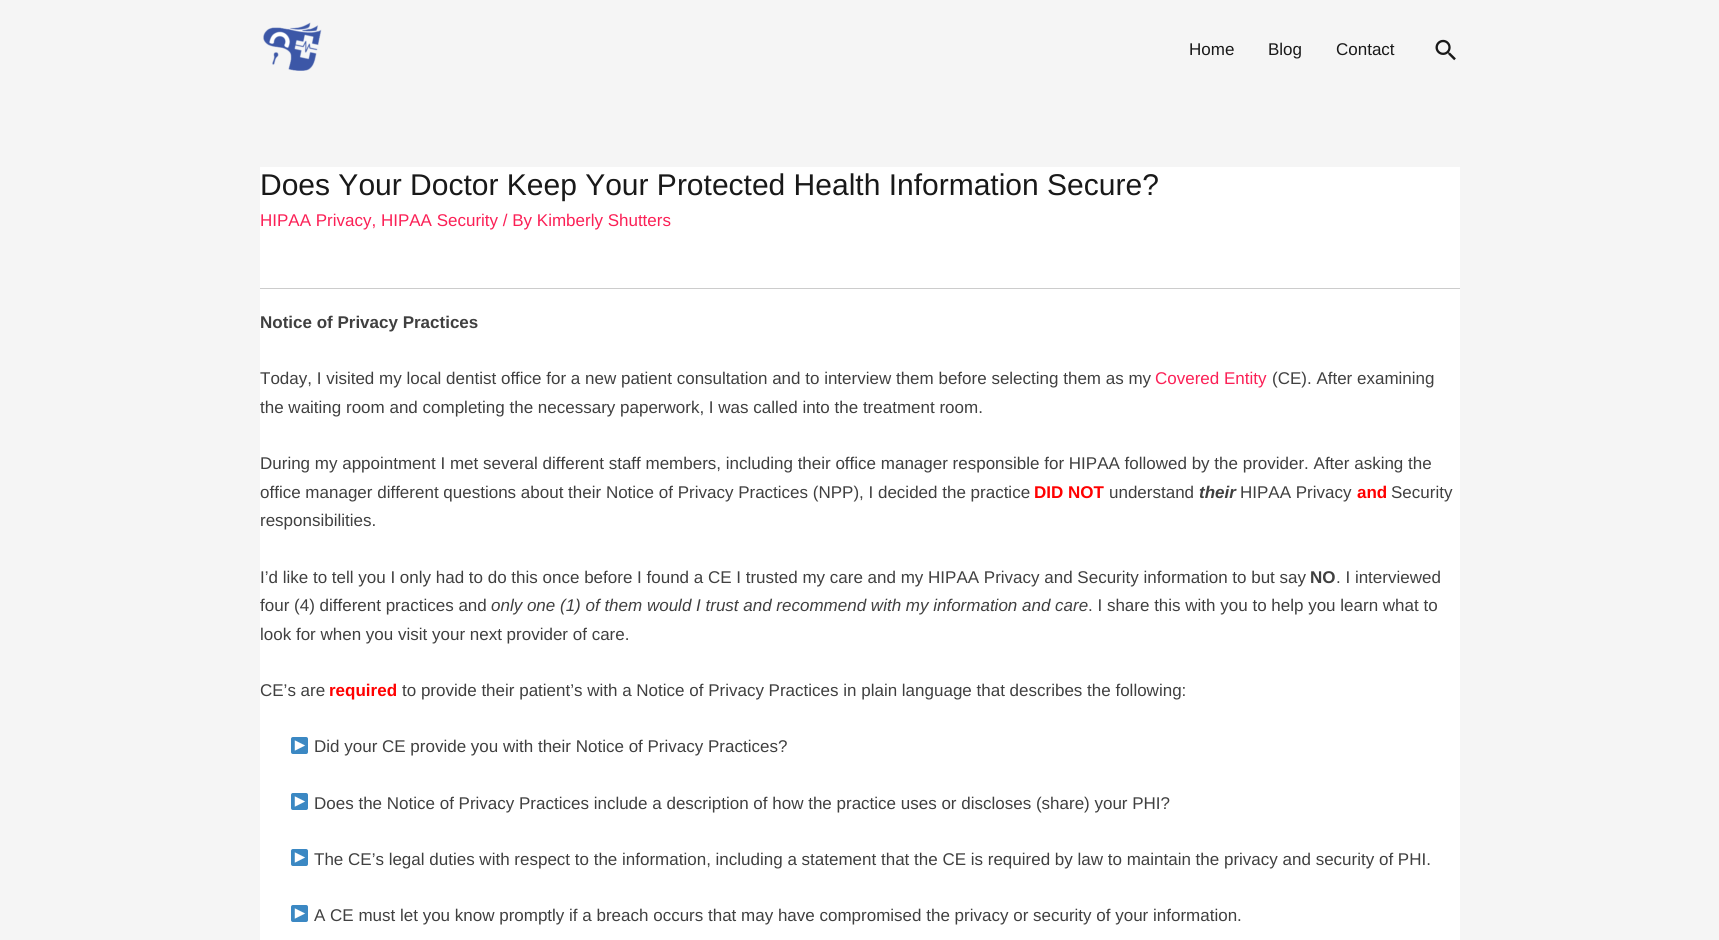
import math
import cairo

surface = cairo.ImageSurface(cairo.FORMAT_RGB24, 1719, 940)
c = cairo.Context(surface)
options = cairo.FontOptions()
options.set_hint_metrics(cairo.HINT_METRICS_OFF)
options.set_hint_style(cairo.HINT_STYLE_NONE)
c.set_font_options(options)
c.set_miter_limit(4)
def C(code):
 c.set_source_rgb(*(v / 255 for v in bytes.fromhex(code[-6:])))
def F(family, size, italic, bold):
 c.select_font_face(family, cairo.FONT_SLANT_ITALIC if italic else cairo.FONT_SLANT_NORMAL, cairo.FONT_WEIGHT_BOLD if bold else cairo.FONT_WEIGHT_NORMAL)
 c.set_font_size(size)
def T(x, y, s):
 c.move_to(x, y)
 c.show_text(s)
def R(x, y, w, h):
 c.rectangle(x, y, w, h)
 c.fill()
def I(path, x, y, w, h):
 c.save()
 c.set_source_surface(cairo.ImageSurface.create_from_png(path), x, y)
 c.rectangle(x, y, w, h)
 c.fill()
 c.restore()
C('f5f5f5')
c.paint()
I('1.png',263,22,59,49)
F('Liberation Sans',17,0,0)
C('191919')
T(1189,55,'Home')
T(1268,55,'Blog')
T(1336,55,'Contact')
I('2.png',1435,39,21,22)
C('ffffff')
R(260,167,1200,773)
F('Liberation Sans',30,0,0)
C('191919')
T(260,195,'Does Your Doctor Keep Your Protected Health Information Secure?')
F('Liberation Sans',17,0,0)
C('fb2056')
T(260,226,'HIPAA Privacy, HIPAA Security / By Kimberly Shutters')
C('cccccc')
R(260,288,1200,1)
F('Liberation Sans',17,0,1)
C('404040')
T(260,328,'Notice of Privacy Practices')
F('Liberation Sans',17,0,0)
T(260,384,'Today, I visited my local dentist office for a new patient consultation and to interview them before selecting them as my')
C('fb2056')
T(1155,384,'Covered Entity')
C('404040')
T(1272,384,'(CE). After examining')
T(260,413,'the waiting room and completing the necessary paperwork, I was called into the treatment room.')
T(260,469,'During my appointment I met several different staff members, including their office manager responsible for HIPAA followed by the provider. After asking the')
T(260,498,'office manager different questions about their Notice of Privacy Practices (NPP), I decided the practice')
F('Liberation Sans',17,0,1)
C('ff0000')
T(1034,498,'DID NOT')
F('Liberation Sans',17,0,0)
C('404040')
T(1109,498,'understand')
F('Liberation Sans',17,1,1)
T(1199,498,'their')
F('Liberation Sans',17,0,0)
T(1240,498,'HIPAA Privacy')
F('Liberation Sans',17,0,1)
C('ff0000')
T(1357,498,'and')
F('Liberation Sans',17,0,0)
C('404040')
T(1391,498,'Security')
T(260,526,'responsibilities.')
T(260,583,'I’d like to tell you I only had to do this once before I found a CE I trusted my care and my HIPAA Privacy and Security information to but say')
F('Liberation Sans',17,0,1)
T(1310,583,'NO')
F('Liberation Sans',17,0,0)
T(1336,583,'. I interviewed')
T(260,611,'four (4) different practices and')
F('Liberation Sans',17,1,0)
T(491,611,'only one (1) of them would I trust and recommend with my information and care')
F('Liberation Sans',17,0,0)
T(1088,611,'. I share this with you to help you learn what to')
T(260,640,'look for when you visit your next provider of care.')
T(260,696,'CE’s are')
F('Liberation Sans',17,0,1)
C('ff0000')
T(329,696,'required')
F('Liberation Sans',17,0,0)
C('404040')
T(402,696,'to provide their patient’s with a Notice of Privacy Practices in plain language that describes the following:')
I('3.png',291,737,17,17)
T(314,752,'Did your CE provide you with their Notice of Privacy Practices?')
I('3.png',291,793,17,17)
T(314,809,'Does the Notice of Privacy Practices include a description of how the practice uses or discloses (share) your PHI?')
I('3.png',291,849,17,17)
T(314,865,'The CE’s legal duties with respect to the information, including a statement that the CE is required by law to maintain the privacy and security of PHI.')
I('3.png',291,905,17,17)
T(314,921,'A CE must let you know promptly if a breach occurs that may have compromised the privacy or security of your information.')
surface.write_to_png('o.png')
